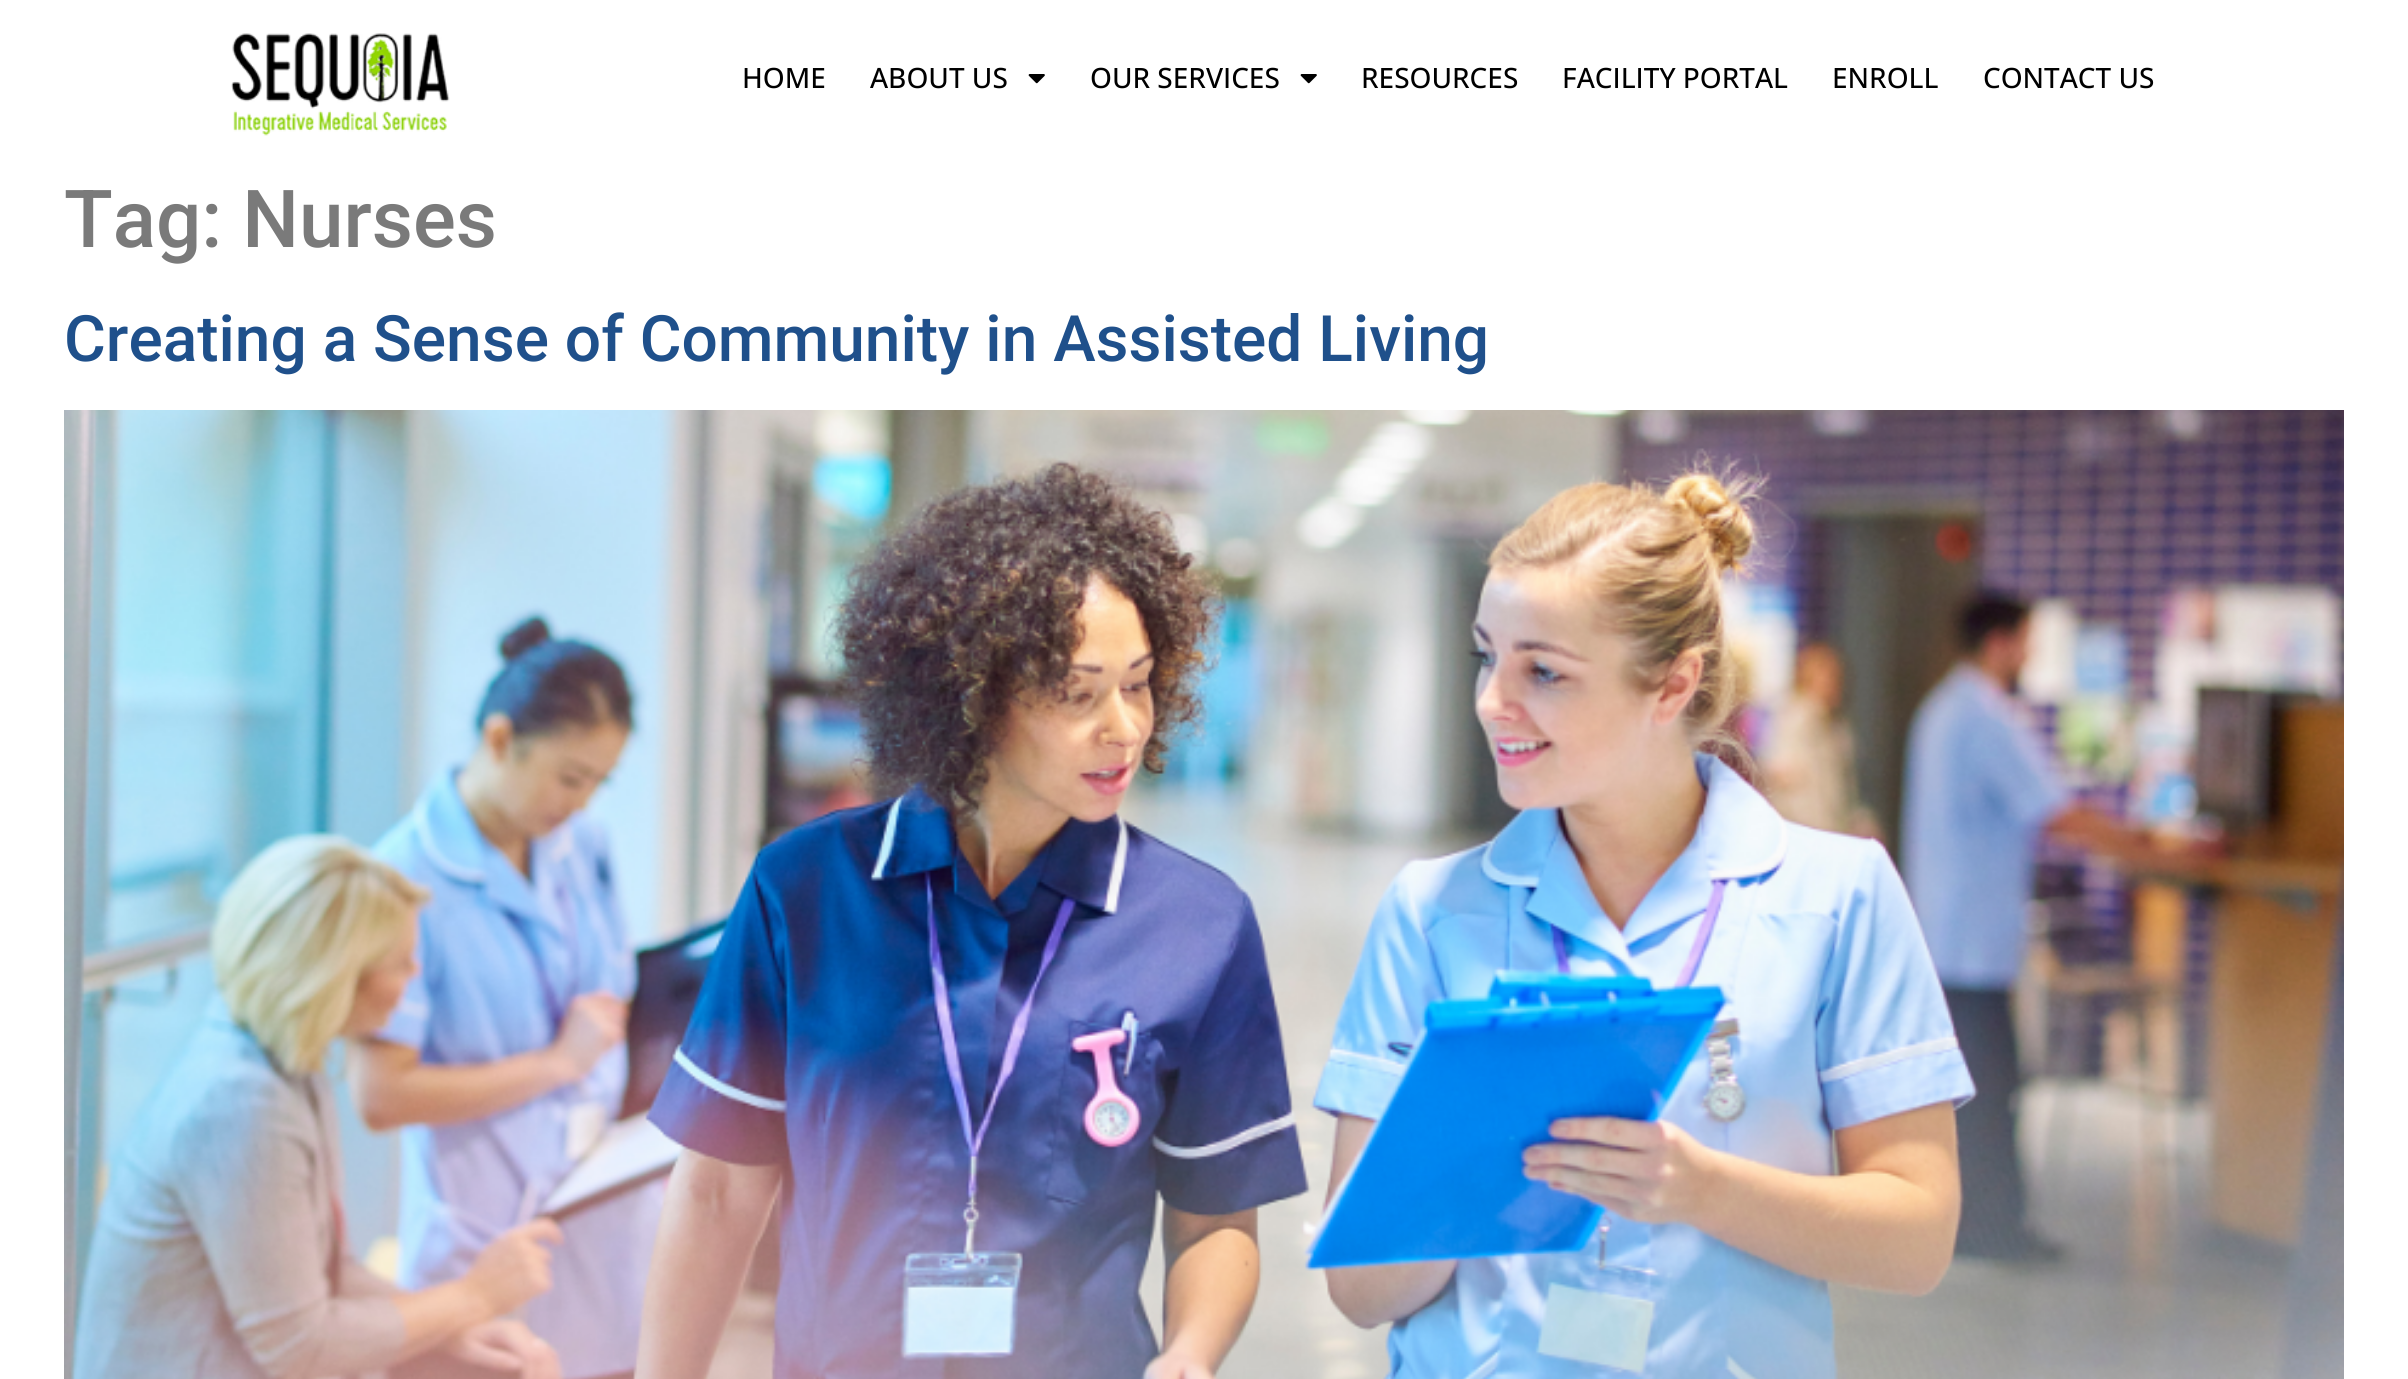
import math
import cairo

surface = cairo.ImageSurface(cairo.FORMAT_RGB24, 2408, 1379)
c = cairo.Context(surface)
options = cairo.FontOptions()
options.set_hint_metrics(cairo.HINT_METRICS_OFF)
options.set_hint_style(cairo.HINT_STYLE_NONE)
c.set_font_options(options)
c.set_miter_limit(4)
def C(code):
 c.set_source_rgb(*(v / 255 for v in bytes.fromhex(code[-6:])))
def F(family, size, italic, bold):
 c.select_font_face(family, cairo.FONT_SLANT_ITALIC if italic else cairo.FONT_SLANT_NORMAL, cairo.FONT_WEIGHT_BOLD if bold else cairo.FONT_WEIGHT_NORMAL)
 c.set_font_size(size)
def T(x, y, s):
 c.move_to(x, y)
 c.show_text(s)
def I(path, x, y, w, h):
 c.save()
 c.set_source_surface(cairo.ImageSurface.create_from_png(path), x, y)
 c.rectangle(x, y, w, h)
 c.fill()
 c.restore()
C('ffffff')
c.paint()
I('1.png',231,33,219,103)
F('Open Sans Medium',28,0,0)
C('000000')
T(742,88,'HOME')
T(870,88,'ABOUT US')
I('2.png',1028,74,17,10)
T(1090,88,'OUR SERVICES')
I('2.png',1300,74,17,10)
T(1361,88,'RESOURCES')
T(1562,88,'FACILITY PORTAL')
T(1832,88,'ENROLL')
T(1983,88,'CONTACT US')
F('Roboto Medium',80,0,0)
C('7a7a7a')
T(64,247,'Tag: Nurses')
F('Roboto Medium',64,0,0)
C('1f508b')
T(64,361,'Creating a Sense of Community in Assisted Living')
I('3.png',64,410,2280,969)
surface.write_to_png('o.png')
